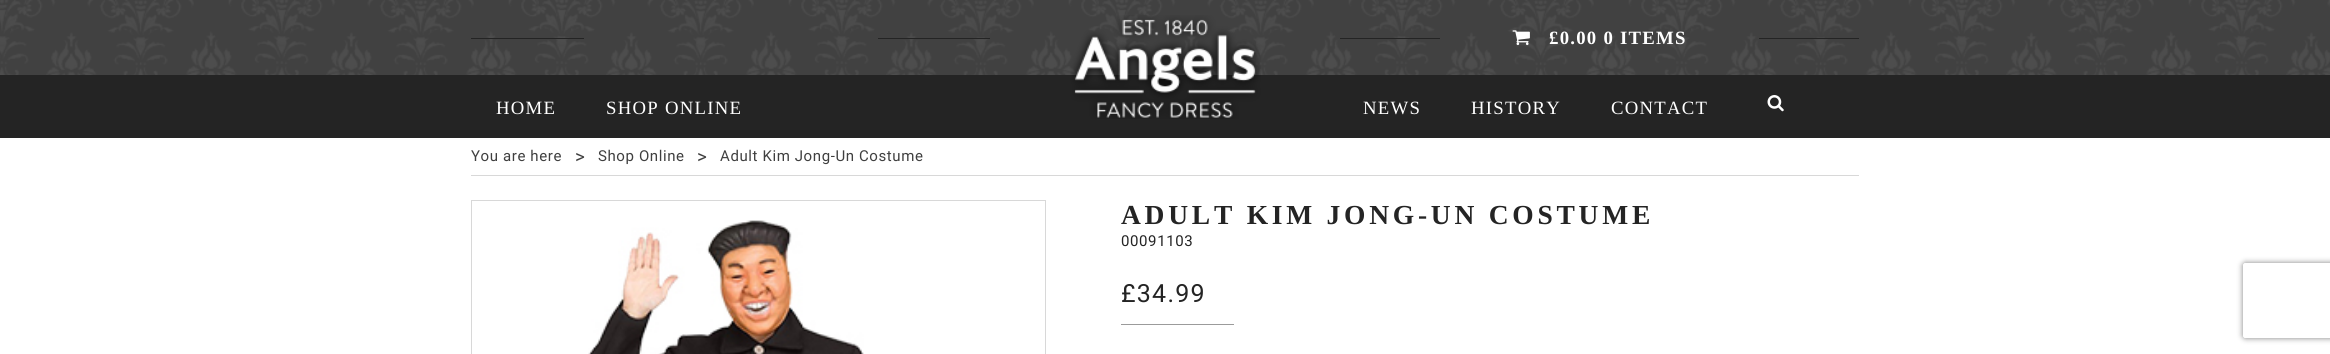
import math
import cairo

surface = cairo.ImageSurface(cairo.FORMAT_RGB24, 2330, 354)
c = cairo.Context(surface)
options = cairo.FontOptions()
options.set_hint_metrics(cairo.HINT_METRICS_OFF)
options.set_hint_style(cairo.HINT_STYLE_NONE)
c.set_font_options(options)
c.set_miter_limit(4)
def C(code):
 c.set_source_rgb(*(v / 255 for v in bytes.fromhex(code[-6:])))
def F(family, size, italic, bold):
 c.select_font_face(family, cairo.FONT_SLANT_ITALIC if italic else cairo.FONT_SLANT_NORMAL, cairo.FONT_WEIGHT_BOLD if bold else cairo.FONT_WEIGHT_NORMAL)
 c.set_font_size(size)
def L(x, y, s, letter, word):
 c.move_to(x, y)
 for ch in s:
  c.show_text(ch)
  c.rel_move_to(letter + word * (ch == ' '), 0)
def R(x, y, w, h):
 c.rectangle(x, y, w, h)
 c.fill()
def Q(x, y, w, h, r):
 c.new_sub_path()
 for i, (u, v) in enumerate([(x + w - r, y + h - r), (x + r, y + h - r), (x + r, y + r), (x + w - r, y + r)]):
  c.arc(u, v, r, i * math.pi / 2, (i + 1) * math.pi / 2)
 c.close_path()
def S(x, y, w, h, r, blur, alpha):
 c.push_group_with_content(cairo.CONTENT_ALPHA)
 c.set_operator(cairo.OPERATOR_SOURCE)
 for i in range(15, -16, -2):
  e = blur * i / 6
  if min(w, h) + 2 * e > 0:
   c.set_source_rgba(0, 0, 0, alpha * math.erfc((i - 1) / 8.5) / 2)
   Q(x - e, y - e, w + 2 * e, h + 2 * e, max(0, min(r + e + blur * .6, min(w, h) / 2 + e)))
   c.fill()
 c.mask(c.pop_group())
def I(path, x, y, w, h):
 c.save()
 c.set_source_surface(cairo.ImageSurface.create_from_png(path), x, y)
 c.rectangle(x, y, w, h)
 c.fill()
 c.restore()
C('242424')
c.paint()
I('1.png',0,0,2330,75)
C('242424')
R(471,38,113,1)
R(878,38,112,1)
I('2.png',1070,15,191,104)
R(1340,38,100,1)
I('3.png',1512,30,18,16)
F('Liberation Serif',18.75,0,1)
C('ffffff')
L(1549,44,'£0.00 0 ITEMS',1.25,0)
C('242424')
R(1759,38,100,1)
F('Liberation Serif',18.75,0,0)
C('ffffff')
L(496,114,'HOME',1.25,0)
L(606,114,'SHOP ONLINE',1.25,0)
L(1363,114,'NEWS',1.25,0)
L(1471,114,'HISTORY',1.25,0)
L(1611,114,'CONTACT',1.25,0)
I('4.png',1767,95,17,17)
R(0,138,2330,216)
C('d8d8d8')
R(471,175,1388,1)
F('Roboto',15,0,0)
C('3f3f3f')
L(471,161,'You are here',.6,0)
F('Roboto',18.75,0,0)
L(575,163,'>',.6,0)
F('Roboto',15,0,0)
L(598,161,'Shop Online',.6,0)
F('Roboto',18.75,0,0)
L(697,163,'>',.6,0)
F('Roboto',15,0,0)
L(720,161,'Adult Kim Jong-Un Costume',.6,0)
c.rectangle(471.5,200.5,574,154)
C('d8d8d8')
c.set_line_width(1)
c.stroke()
I('5.png',588,220,276,134)
F('Liberation Serif',27.5,0,1)
C('242424')
L(1121,224,'ADULT KIM JONG-UN COSTUME',3.75,0)
F('Roboto',15,0,0)
L(1121,246,'00091103',.6,0)
F('Roboto',25,0,0)
L(1121,302,'£34.99',1.25,0)
C('9b9b9b')
R(1121,324,113,1)
c.save()
c.set_fill_rule(cairo.FILL_RULE_EVEN_ODD)
c.new_path()
c.move_to(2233,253)
c.line_to(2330,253)
c.line_to(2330,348)
c.line_to(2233,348)
c.close_path()
c.move_to(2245.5,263)
c.line_to(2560.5,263)
c.curve_to(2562,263,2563,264,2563,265.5)
c.line_to(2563,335.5)
c.curve_to(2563,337,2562,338,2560.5,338)
c.line_to(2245.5,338)
c.curve_to(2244,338,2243,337,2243,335.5)
c.line_to(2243,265.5)
c.curve_to(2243,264,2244,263,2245.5,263)
c.close_path()
c.clip()
C('808080')
S(2243,263,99,75,2.5,3,1)
c.restore()
surface.write_to_png('o.png')
